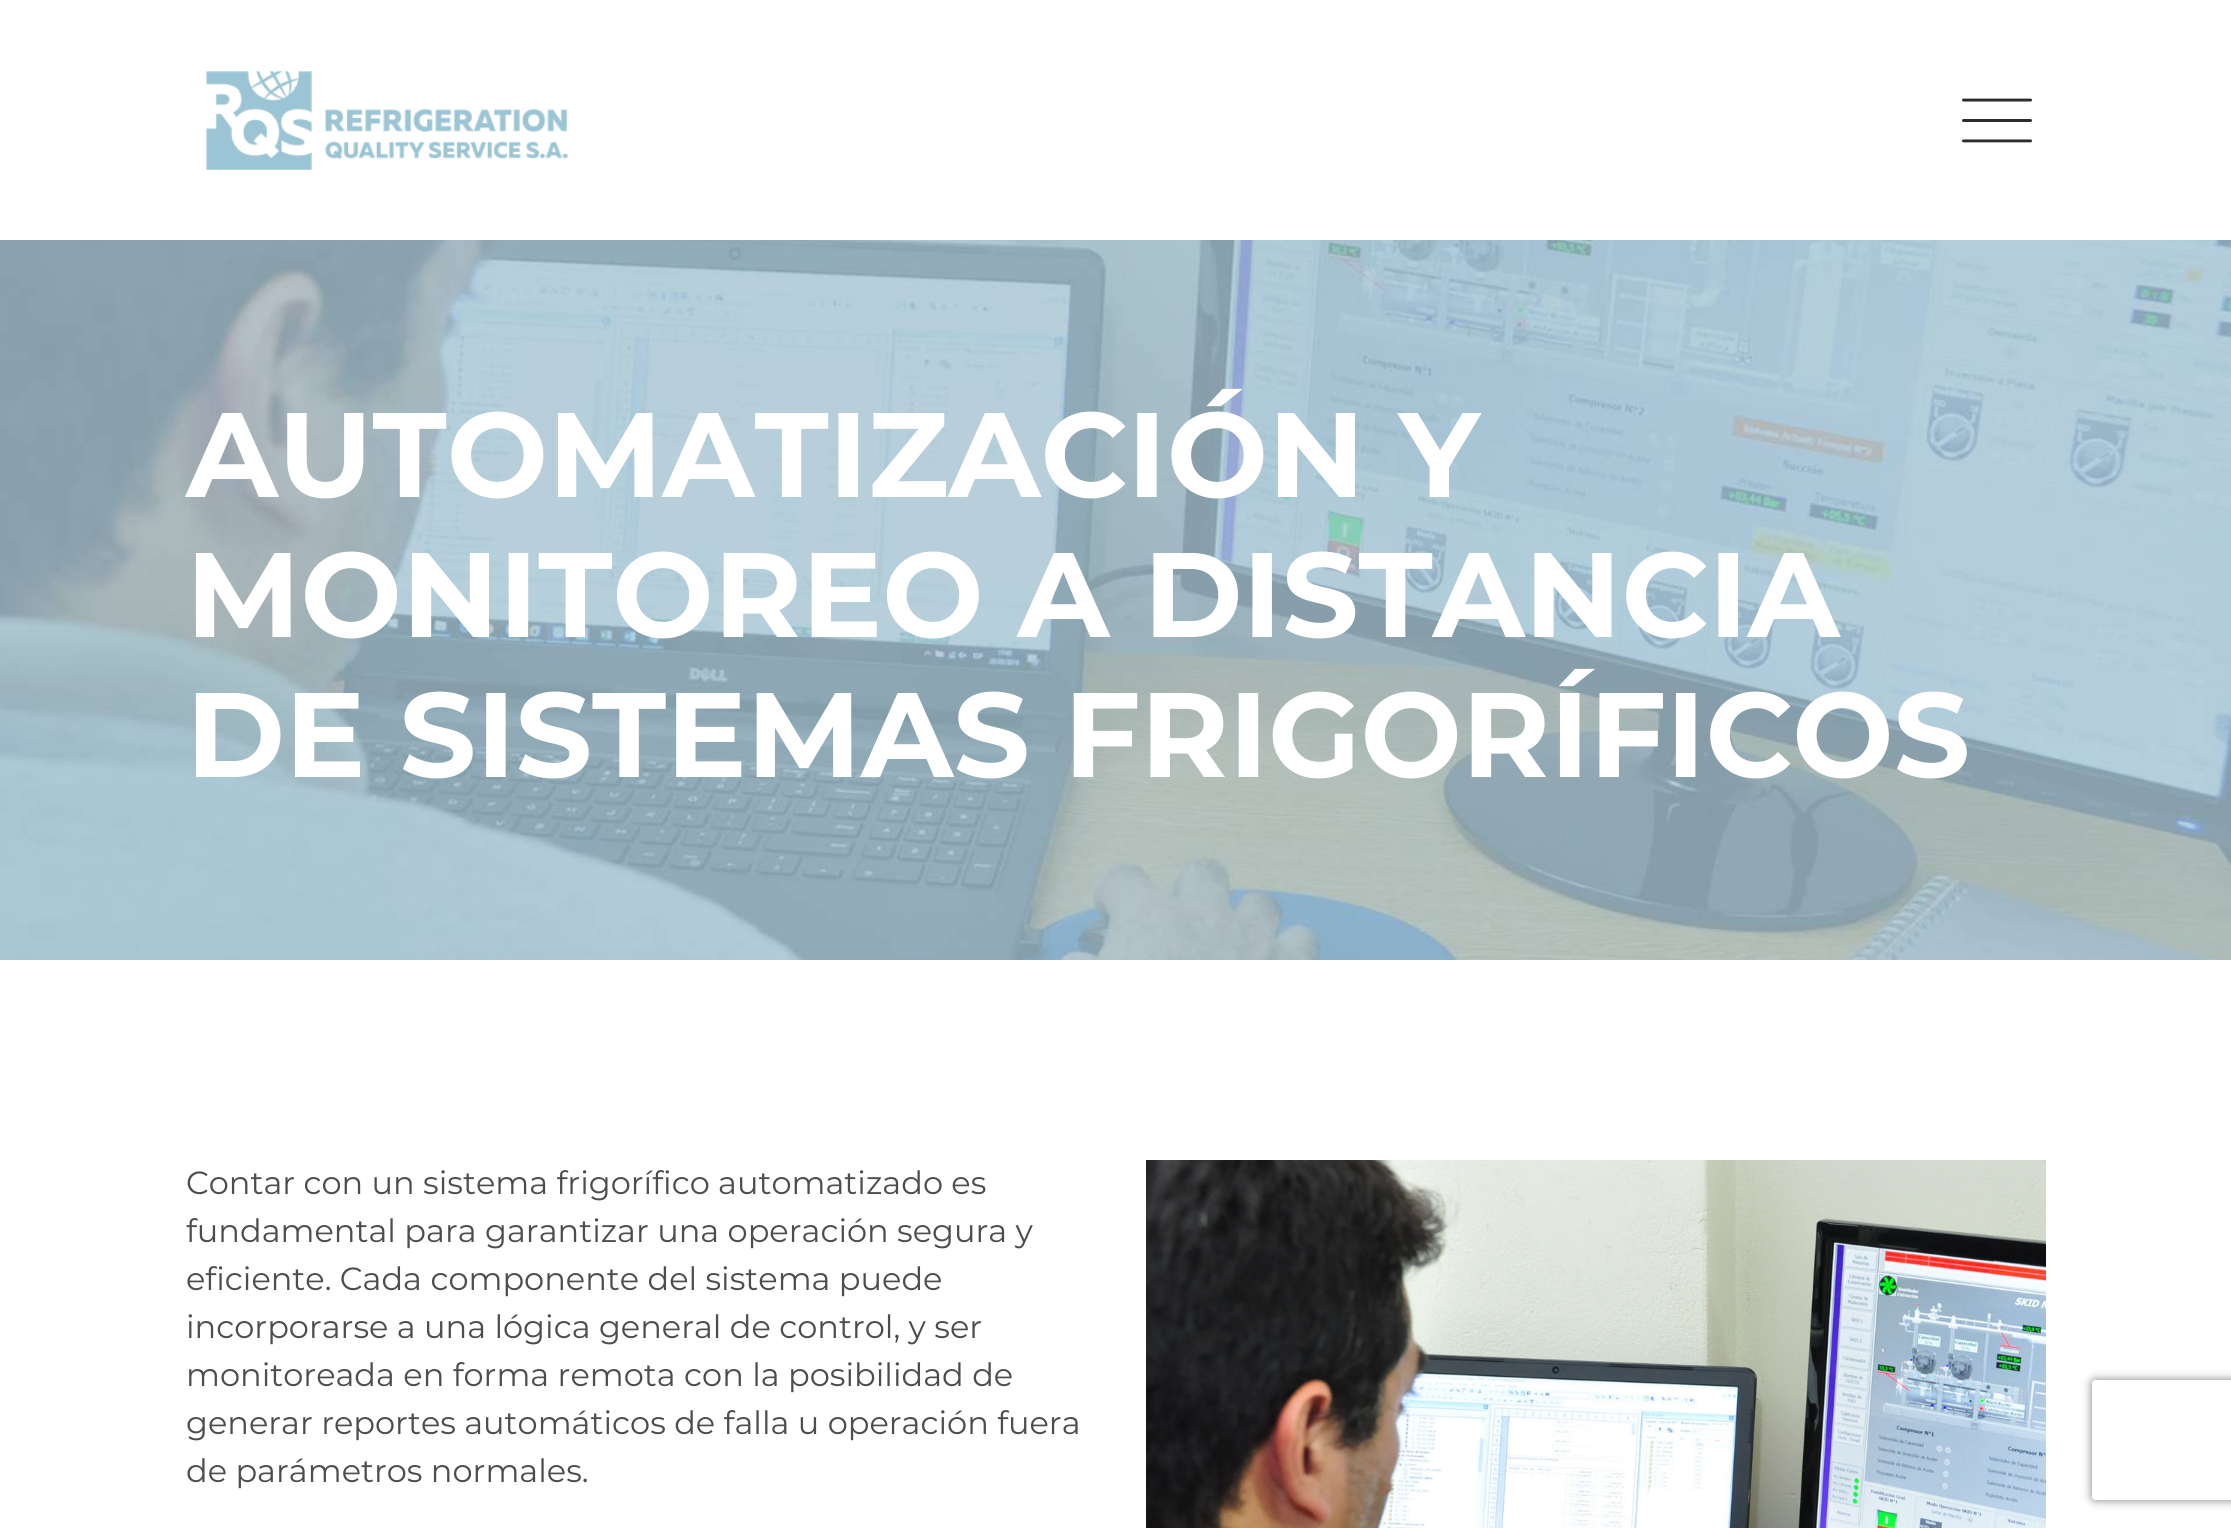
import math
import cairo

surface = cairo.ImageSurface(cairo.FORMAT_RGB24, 2231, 1528)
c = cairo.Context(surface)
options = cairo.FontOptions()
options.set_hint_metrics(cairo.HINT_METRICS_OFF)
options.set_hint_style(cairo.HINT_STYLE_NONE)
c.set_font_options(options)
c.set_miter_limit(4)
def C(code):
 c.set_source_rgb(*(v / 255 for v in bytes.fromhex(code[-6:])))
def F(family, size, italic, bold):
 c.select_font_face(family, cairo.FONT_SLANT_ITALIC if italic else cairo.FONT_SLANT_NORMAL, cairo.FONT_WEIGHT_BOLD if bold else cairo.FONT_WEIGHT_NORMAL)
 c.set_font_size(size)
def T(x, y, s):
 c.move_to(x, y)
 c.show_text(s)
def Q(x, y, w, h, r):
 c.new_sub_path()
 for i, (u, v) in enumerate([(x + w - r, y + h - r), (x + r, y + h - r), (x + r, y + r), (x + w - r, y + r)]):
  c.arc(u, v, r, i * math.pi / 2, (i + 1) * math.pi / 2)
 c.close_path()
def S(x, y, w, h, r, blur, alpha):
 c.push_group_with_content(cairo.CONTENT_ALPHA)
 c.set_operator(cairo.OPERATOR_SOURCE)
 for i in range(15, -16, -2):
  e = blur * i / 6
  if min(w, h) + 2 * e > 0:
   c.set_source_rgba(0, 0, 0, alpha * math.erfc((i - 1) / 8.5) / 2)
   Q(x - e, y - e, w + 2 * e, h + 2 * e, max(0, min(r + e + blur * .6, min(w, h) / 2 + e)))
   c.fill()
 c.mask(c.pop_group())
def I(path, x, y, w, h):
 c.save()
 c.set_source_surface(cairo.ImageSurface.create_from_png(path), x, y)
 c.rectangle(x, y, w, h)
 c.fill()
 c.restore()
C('ffffff')
c.paint()
I('1.png',206,71,362,99)
I('2.png',1962,98,70,45)
I('3.png',0,240,2231,720)
F('Montserrat',120,0,1)
C('ffffff')
T(186,497,'AUTOMATIZACIÓN Y')
T(186,637,'MONITOREO A DISTANCIA')
T(186,777,'DE SISTEMAS FRIGORÍFICOS')
F('Montserrat',32,0,0)
C('4d4d4d')
T(186,1194,'Contar con un sistema frigorífico automatizado es')
T(186,1242,'fundamental para garantizar una operación segura y')
T(186,1290,'eficiente. Cada componente del sistema puede')
T(186,1338,'incorporarse a una lógica general de control, y ser')
T(186,1386,'monitoreada en forma remota con la posibilidad de')
T(186,1434,'generar reportes automáticos de falla u operación fuera')
T(186,1482,'de parámetros normales.')
I('4.png',1146,1160,900,368)
c.save()
c.set_fill_rule(cairo.FILL_RULE_EVEN_ODD)
c.new_path()
c.move_to(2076,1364)
c.line_to(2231,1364)
c.line_to(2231,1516)
c.line_to(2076,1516)
c.close_path()
c.move_to(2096,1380)
c.line_to(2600,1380)
c.curve_to(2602,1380,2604,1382,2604,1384)
c.line_to(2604,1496)
c.curve_to(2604,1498,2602,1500,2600,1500)
c.line_to(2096,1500)
c.curve_to(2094,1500,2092,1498,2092,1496)
c.line_to(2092,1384)
c.curve_to(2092,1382,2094,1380,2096,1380)
c.close_path()
c.clip()
C('808080')
S(2092,1380,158,120,4,5,1)
c.restore()
surface.write_to_png('o.png')
